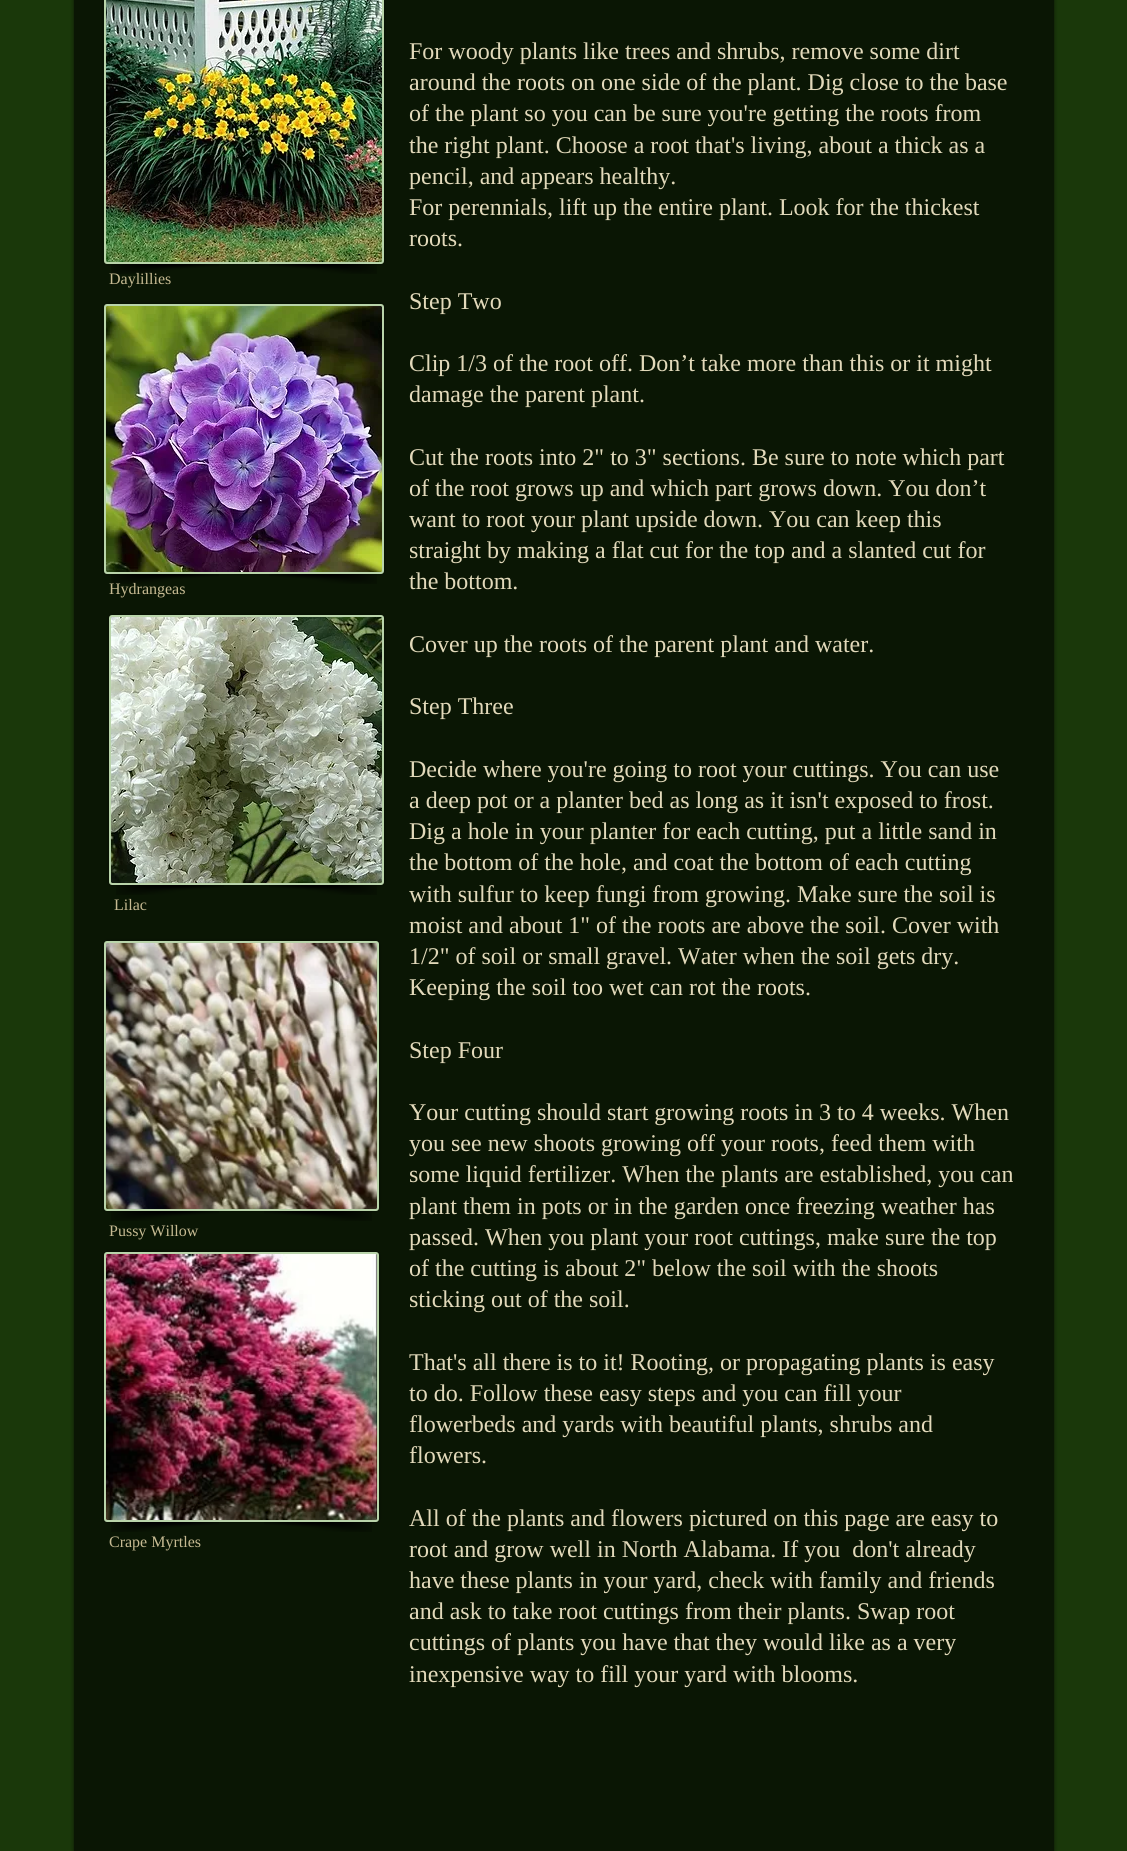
import math
import cairo

surface = cairo.ImageSurface(cairo.FORMAT_RGB24, 1127, 1851)
c = cairo.Context(surface)
options = cairo.FontOptions()
options.set_hint_metrics(cairo.HINT_METRICS_OFF)
options.set_hint_style(cairo.HINT_STYLE_NONE)
c.set_font_options(options)
c.set_miter_limit(4)
def C(code):
 c.set_source_rgb(*(v / 255 for v in bytes.fromhex(code[-6:])))
def F(family, size, italic, bold):
 c.select_font_face(family, cairo.FONT_SLANT_ITALIC if italic else cairo.FONT_SLANT_NORMAL, cairo.FONT_WEIGHT_BOLD if bold else cairo.FONT_WEIGHT_NORMAL)
 c.set_font_size(size)
def T(x, y, s):
 c.move_to(x, y)
 c.show_text(s)
def R(x, y, w, h):
 c.rectangle(x, y, w, h)
 c.fill()
def Q(x, y, w, h, r):
 c.new_sub_path()
 for i, (u, v) in enumerate([(x + w - r, y + h - r), (x + r, y + h - r), (x + r, y + r), (x + w - r, y + r)]):
  c.arc(u, v, r, i * math.pi / 2, (i + 1) * math.pi / 2)
 c.close_path()
def S(x, y, w, h, r, blur, alpha):
 c.push_group_with_content(cairo.CONTENT_ALPHA)
 c.set_operator(cairo.OPERATOR_SOURCE)
 for i in range(15, -16, -2):
  e = blur * i / 6
  if min(w, h) + 2 * e > 0:
   c.set_source_rgba(0, 0, 0, alpha * math.erfc((i - 1) / 8.5) / 2)
   Q(x - e, y - e, w + 2 * e, h + 2 * e, max(0, min(r + e + blur * .6, min(w, h) / 2 + e)))
   c.fill()
 c.mask(c.pop_group())
def I(path, x, y, w, h):
 c.save()
 c.set_source_surface(cairo.ImageSurface.create_from_png(path), x, y)
 c.rectangle(x, y, w, h)
 c.fill()
 c.restore()
C('1a380a')
c.paint()
C('000000')
S(74,-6,980,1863,0,2,.6)
C('0a1604')
R(74,0,980,1851)
C('000000')
S(104,-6,280,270,3,1.5,.5)
C('b9d4aa')
Q(105,-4,278,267,2)
c.fill_preserve()
c.stroke()
I('1.png',106,0,276,262)
I('2.png',111,264,108,10)
I('3.png',269,264,108,10)
F('Liberation Serif',24,0,0)
C('e2d9ba')
T(409,59,'For woody plants like trees and shrubs, remove some dirt')
T(409,90,'around the roots on one side of the plant. Dig close to the base')
T(409,121,'of the plant so you can be sure you\'re getting the roots from')
T(409,153,'the right plant. Choose a root that\'s living, about a thick as a')
T(409,184,'pencil, and appears healthy.')
T(409,215,'For perennials, lift up the entire plant. Look for the thickest')
T(409,246,'roots.')
T(409,309,'Step Two')
T(409,371,'Clip 1/3 of the root off. Don’t take more than this or it might')
T(409,402,'damage the parent plant.')
T(409,465,'Cut the roots into 2" to 3" sections. Be sure to note which part')
T(409,496,'of the root grows up and which part grows down. You don’t')
T(409,527,'want to root your plant upside down. You can keep this')
T(409,558,'straight by making a flat cut for the top and a slanted cut for')
T(409,589,'the bottom.')
T(409,652,'Cover up the roots of the parent plant and water.')
T(409,714,'Step Three')
T(409,777,'Decide where you\'re going to root your cuttings. You can use')
T(409,808,'a deep pot or a planter bed as long as it isn\'t exposed to frost.')
T(409,839,'Dig a hole in your planter for each cutting, put a little sand in')
T(409,870,'the bottom of the hole, and coat the bottom of each cutting')
T(409,902,'with sulfur to keep fungi from growing. Make sure the soil is')
T(409,933,'moist and about 1" of the roots are above the soil. Cover with')
T(409,964,'1/2" of soil or small gravel. Water when the soil gets dry.')
T(409,995,'Keeping the soil too wet can rot the roots.')
T(409,1058,'Step Four')
T(409,1120,'Your cutting should start growing roots in 3 to 4 weeks. When')
T(409,1151,'you see new shoots growing off your roots, feed them with')
T(409,1182,'some liquid fertilizer. When the plants are established, you can')
T(409,1214,'plant them in pots or in the garden once freezing weather has')
T(409,1245,'passed. When you plant your root cuttings, make sure the top')
T(409,1276,'of the cutting is about 2" below the soil with the shoots')
T(409,1307,'sticking out of the soil.')
T(409,1370,'That\'s all there is to it! Rooting, or propagating plants is easy')
T(409,1401,'to do. Follow these easy steps and you can fill your')
T(409,1432,'flowerbeds and yards with beautiful plants, shrubs and')
T(409,1463,'flowers.')
T(409,1526,'All of the plants and flowers pictured on this page are easy to')
T(409,1557,'root and grow well in North Alabama. If you  don\'t already')
T(409,1588,'have these plants in your yard, check with family and friends')
T(409,1619,'and ask to take root cuttings from their plants. Swap root')
T(409,1650,'cuttings of plants you have that they would like as a very')
T(409,1682,'inexpensive way to fill your yard with blooms.')
F('Liberation Serif',16,0,0)
C('c6ba92')
T(109,284,'Daylillies')
C('000000')
S(104,304,280,270,3,1.5,.5)
C('b9d4aa')
Q(105,305,278,268,2)
c.fill_preserve()
c.stroke()
I('4.png',106,306,276,266)
I('2.png',111,574,108,10)
I('3.png',269,574,108,10)
C('c6ba92')
T(109,594,'Hydrangeas')
C('000000')
S(109,615,275,270,3,1.5,.5)
C('b9d4aa')
Q(110,616,273,268,2)
c.fill_preserve()
c.stroke()
I('5.png',111,617,271,266)
I('2.png',116,885,108,10)
I('3.png',269,885,108,10)
C('c6ba92')
T(114,910,'Lilac')
C('000000')
S(104,941,275,270,3,1.5,.5)
C('b9d4aa')
Q(105,942,273,268,2)
c.fill_preserve()
c.stroke()
I('6.png',106,943,271,266)
I('2.png',111,1211,108,10)
I('3.png',264,1211,108,10)
C('c6ba92')
T(109,1236,'Pussy Willow')
C('000000')
S(104,1252,275,270,3,1.5,.5)
C('b9d4aa')
Q(105,1253,273,268,2)
c.fill_preserve()
c.stroke()
I('7.png',106,1254,271,266)
I('2.png',111,1522,108,10)
I('3.png',264,1522,108,10)
C('c6ba92')
T(109,1547,'Crape Myrtles')
surface.write_to_png('o.png')
